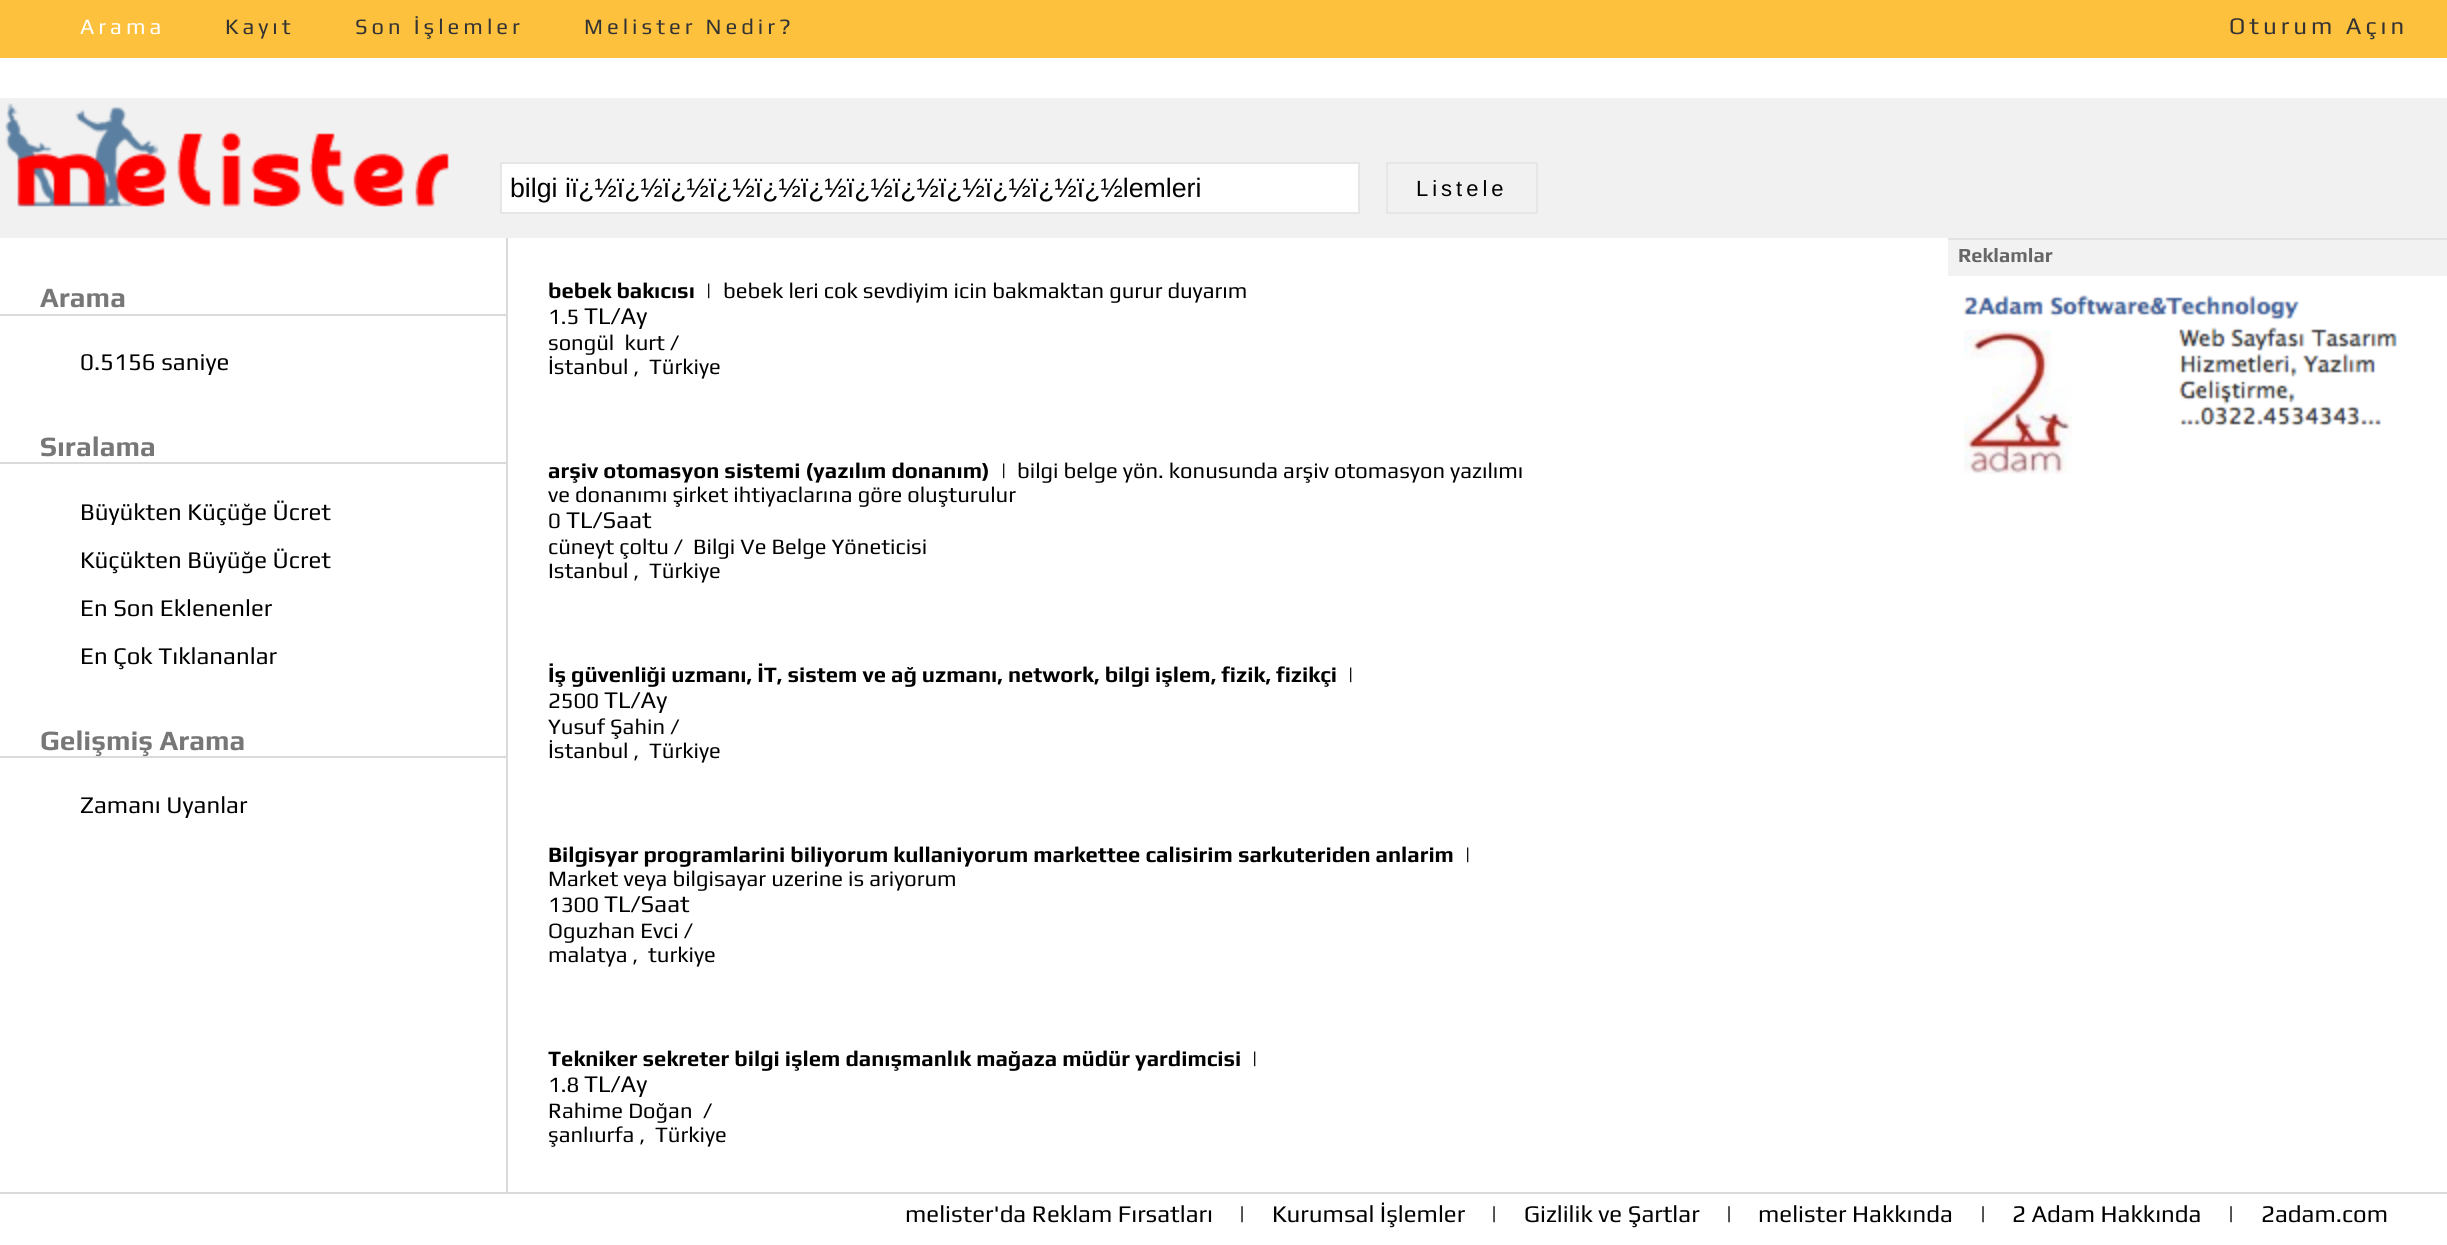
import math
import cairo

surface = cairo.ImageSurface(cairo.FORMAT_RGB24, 2447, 1245)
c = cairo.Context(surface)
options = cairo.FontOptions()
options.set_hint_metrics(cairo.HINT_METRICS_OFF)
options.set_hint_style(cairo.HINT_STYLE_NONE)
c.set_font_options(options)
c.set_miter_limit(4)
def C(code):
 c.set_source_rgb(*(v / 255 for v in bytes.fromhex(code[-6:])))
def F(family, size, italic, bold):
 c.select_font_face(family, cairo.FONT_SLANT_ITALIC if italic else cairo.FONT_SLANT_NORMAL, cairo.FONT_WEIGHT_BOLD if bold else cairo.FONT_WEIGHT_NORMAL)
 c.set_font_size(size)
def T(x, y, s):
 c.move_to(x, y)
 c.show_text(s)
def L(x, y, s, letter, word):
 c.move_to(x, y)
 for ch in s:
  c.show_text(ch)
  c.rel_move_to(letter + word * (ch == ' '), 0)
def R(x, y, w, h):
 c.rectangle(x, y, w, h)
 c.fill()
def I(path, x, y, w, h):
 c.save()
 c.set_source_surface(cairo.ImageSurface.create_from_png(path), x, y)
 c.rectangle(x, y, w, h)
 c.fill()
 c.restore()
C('ffffff')
c.paint()
C('fdc13e')
R(0,0,2447,58)
F('Play',22,0,0)
C('ffffff')
L(80,34,'Arama',4,0)
C('333333')
L(225,34,'Kayıt',4,0)
L(355,34,'Son İşlemler',4,0)
L(584,34,'Melister Nedir?',4,0)
F('Play',24,0,0)
L(2229,34,'Oturum Açın',4,0)
C('f1f1f1')
R(0,98,2447,140)
I('1.png',5,103,444,104)
C('ffffff')
c.rectangle(501,163,858,50)
c.fill_preserve()
C('e6e6e6')
c.stroke()
F('Liberation Sans',26.7,0,0)
C('000000')
T(510,197,'bilgi iï¿½ï¿½ï¿½ï¿½ï¿½ï¿½ï¿½ï¿½ï¿½ï¿½ï¿½ï¿½lemleri')
c.rectangle(1387,163,150,50)
C('e6e6e6')
c.stroke()
F('Liberation Sans',22,0,0)
C('000000')
L(1416,196,'Listele',4,0)
C('f2f2f2')
R(1948,240,499,36)
C('e2e2e2')
R(1948,238,499,2)
F('Play',20,0,1)
C('666666')
T(1958,262,'Reklamlar')
I('2.png',1963,295,434,179)
C('dadada')
R(0,314,506,2)
F('Play',28,0,1)
C('777777')
T(40,307,'Arama')
F('Play',24,0,0)
C('000000')
T(80,370,'0.5156 saniye')
C('dadada')
R(0,462,506,2)
F('Play',28,0,1)
C('777777')
T(40,456,'Sıralama')
F('Play',24,0,0)
C('000000')
T(80,520,'Büyükten Küçüğe Ücret')
T(80,568,'Küçükten Büyüğe Ücret')
T(80,616,'En Son Eklenenler')
T(80,664,'En Çok Tıklananlar')
C('dadada')
R(0,756,506,2)
F('Play',28,0,1)
C('777777')
T(40,750,'Gelişmiş Arama')
F('Play',24,0,0)
C('000000')
T(80,813,'Zamanı Uyanlar')
C('dadada')
R(506,238,2,954)
F('Play',22,0,1)
C('000000')
T(548,298,'bebek bakıcısı')
F('Play',22,0,0)
T(705,298,'|')
T(723,298,'bebek leri cok sevdiyim icin bakmaktan gurur duyarım')
T(548,324,'1.5')
F('Play',24,0,0)
T(584,324,'TL/Ay')
F('Play',22,0,0)
T(548,350,'songül  kurt /')
T(548,374,'İstanbul ,')
T(649,374,'Türkiye')
F('Play',22,0,1)
T(548,478,'arşiv otomasyon sistemi (yazılım donanım)')
F('Play',22,0,0)
T(1000,478,'|')
T(1017,478,'bilgi belge yön. konusunda arşiv otomasyon yazılımı')
T(548,502,'ve donanımı şirket ihtiyaclarına göre oluşturulur')
T(548,528,'0')
F('Play',24,0,0)
T(566,528,'TL/Saat')
F('Play',22,0,0)
T(548,554,'cüneyt çoltu /')
T(693,554,'Bilgi Ve Belge Yöneticisi')
T(548,578,'Istanbul ,')
T(649,578,'Türkiye')
F('Play',22,0,1)
T(548,682,'İş güvenliği uzmanı, İT, sistem ve ağ uzmanı, network, bilgi işlem, fizik, fizikçi')
F('Play',22,0,0)
T(1347,682,'|')
T(548,708,'2500')
F('Play',24,0,0)
T(604,708,'TL/Ay')
F('Play',22,0,0)
T(548,734,'Yusuf Şahin /')
T(548,758,'İstanbul ,')
T(649,758,'Türkiye')
F('Play',22,0,1)
T(548,862,'Bilgisyar programlarini biliyorum kullaniyorum markettee calisirim sarkuteriden anlarim')
F('Play',22,0,0)
T(1464,862,'|')
T(548,886,'Market veya bilgisayar uzerine is ariyorum')
T(548,912,'1300')
F('Play',24,0,0)
T(604,912,'TL/Saat')
F('Play',22,0,0)
T(548,938,'Oguzhan Evci /')
T(548,962,'malatya ,')
T(648,962,'turkiye')
F('Play',22,0,1)
T(548,1066,'Tekniker sekreter bilgi işlem danışmanlık mağaza müdür yardimcisi')
F('Play',22,0,0)
T(1251,1066,'|')
T(548,1092,'1.8')
F('Play',24,0,0)
T(584,1092,'TL/Ay')
F('Play',22,0,0)
T(548,1118,'Rahime Doğan')
T(703,1118,'/')
T(548,1142,'şanlıurfa ,')
T(655,1142,'Türkiye')
C('dadada')
R(0,1192,2447,2)
F('Play',24,0,0)
C('000000')
T(905,1222,'melister\'da Reklam Fırsatları')
T(1238,1222,'|')
T(1272,1222,'Kurumsal İşlemler')
T(1490,1222,'|')
T(1524,1222,'Gizlilik ve Şartlar')
T(1725,1222,'|')
T(1758,1222,'melister Hakkında')
T(1979,1222,'|')
T(2012,1222,'2 Adam Hakkında')
T(2227,1222,'|')
T(2261,1222,'2adam.com')
surface.write_to_png('o.png')
